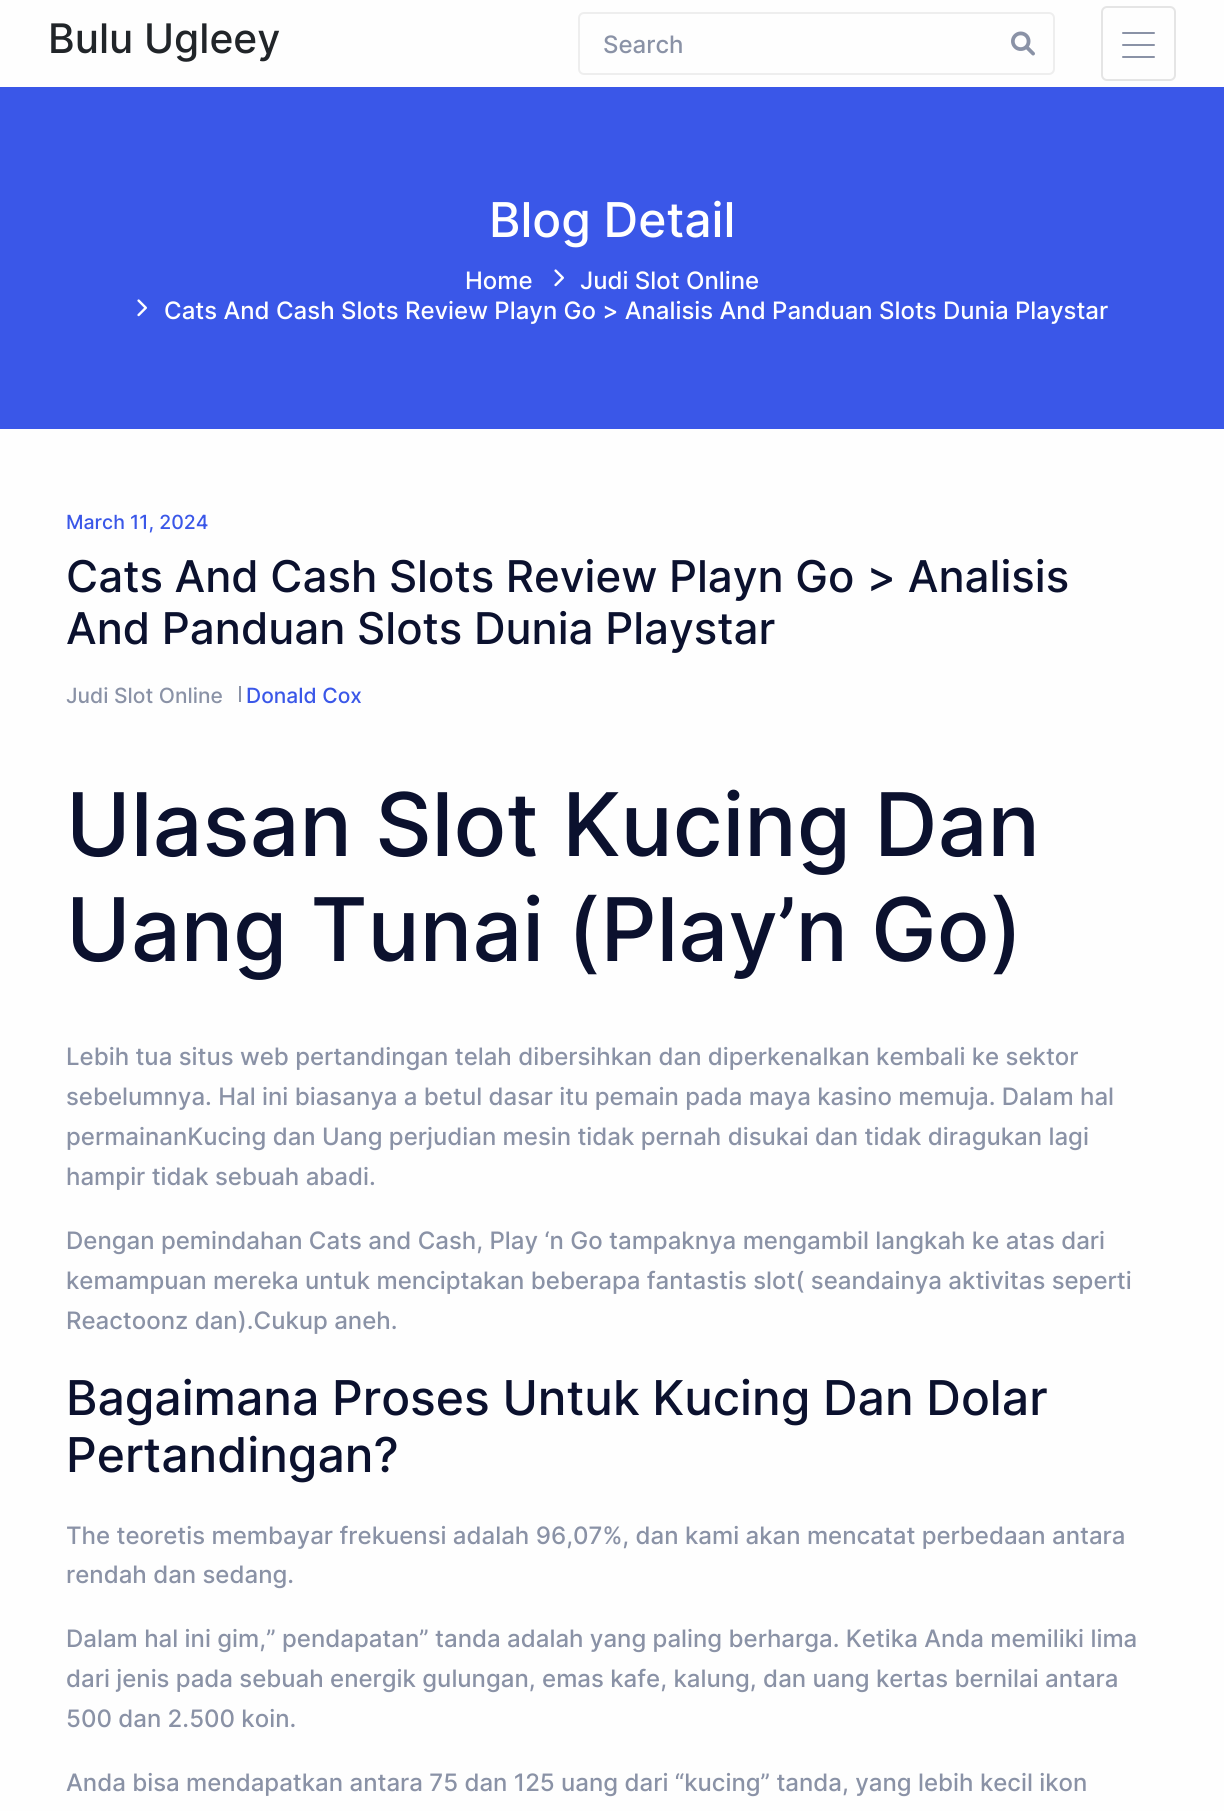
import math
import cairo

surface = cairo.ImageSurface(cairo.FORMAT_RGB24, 1224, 1811)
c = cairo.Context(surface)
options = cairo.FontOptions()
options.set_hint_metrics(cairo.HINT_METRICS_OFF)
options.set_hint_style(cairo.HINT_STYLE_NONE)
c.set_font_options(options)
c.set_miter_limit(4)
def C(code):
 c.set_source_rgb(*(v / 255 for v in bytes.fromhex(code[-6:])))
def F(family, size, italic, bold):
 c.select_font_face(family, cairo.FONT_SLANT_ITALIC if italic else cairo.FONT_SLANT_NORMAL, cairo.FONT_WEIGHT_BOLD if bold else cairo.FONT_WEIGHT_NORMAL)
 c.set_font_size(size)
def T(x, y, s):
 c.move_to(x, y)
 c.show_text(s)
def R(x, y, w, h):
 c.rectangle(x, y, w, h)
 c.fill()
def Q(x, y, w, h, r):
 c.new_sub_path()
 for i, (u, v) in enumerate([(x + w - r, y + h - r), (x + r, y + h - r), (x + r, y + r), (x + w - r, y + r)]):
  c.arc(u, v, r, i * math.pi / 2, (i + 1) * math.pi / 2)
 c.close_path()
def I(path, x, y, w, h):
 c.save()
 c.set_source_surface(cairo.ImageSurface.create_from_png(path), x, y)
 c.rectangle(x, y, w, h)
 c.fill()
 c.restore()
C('fefefe')
c.paint()
F('Inter Medium',40.75,0,0)
C('212529')
T(48,53,'Bulu Ugleey')
Q(579,13,475,61,5)
C('eeeeee')
c.stroke()
F('Inter Medium',24,0,0)
C('8a92a6')
T(603,53,'Search')
I('1.png',1011,31,24,25)
Q(1102,7,73,73,5)
C('e5e5e5')
c.stroke()
C('8a92a6')
Q(1122,32,33,2,1)
c.fill()
Q(1122,44,33,2,1)
c.fill()
Q(1122,56,33,2,1)
c.fill()
C('3a57e8')
R(0,87,1224,342)
F('Inter Medium',48,0,0)
C('ffffff')
T(489,237,'Blog Detail')
F('Inter Medium',24,0,0)
T(465,289,'Home')
I('2.png',554,269,10,18)
T(580,289,'Judi Slot Online')
I('2.png',137,299,10,18)
T(164,319,'Cats And Cash Slots Review Playn Go > Analisis And Panduan Slots Dunia Playstar')
F('Inter Medium',19.5,0,0)
C('3a57e8')
T(66,529,'March 11, 2024')
F('Inter Medium',43.8,0,0)
C('0b112e')
T(66,592,'Cats And Cash Slots Review Playn Go')
T(867,592,'> Analisis')
T(66,644,'And Panduan Slots Dunia Playstar')
F('Inter Medium',21,0,0)
C('8a92a6')
T(66,703,'Judi Slot Online')
R(239,686,2,16)
C('3a57e8')
T(246,703,'Donald Cox')
F('Inter Medium',87.75,0,0)
C('0b112e')
T(66,856,'Ulasan Slot Kucing Dan')
T(66,961,'Uang Tunai (Play’n Go)')
F('Inter Medium',24,0,0)
C('8a92a6')
T(66,1065,'Lebih tua situs web pertandingan telah dibersihkan dan diperkenalkan kembali ke sektor')
T(66,1105,'sebelumnya. Hal ini biasanya a betul dasar itu pemain pada maya kasino memuja. Dalam hal')
T(66,1145,'permainanKucing dan Uang perjudian mesin tidak pernah disukai dan tidak diragukan lagi')
T(66,1185,'hampir tidak sebuah abadi.')
T(66,1249,'Dengan pemindahan Cats and Cash, Play ‘n Go tampaknya mengambil langkah ke atas dari')
T(66,1289,'kemampuan mereka untuk menciptakan beberapa fantastis slot( seandainya aktivitas seperti')
T(66,1329,'Reactoonz dan).Cukup aneh.')
F('Inter Medium',48,0,0)
C('0b112e')
T(66,1415,'Bagaimana Proses Untuk Kucing Dan Dolar')
T(66,1472,'Pertandingan?')
F('Inter Medium',24,0,0)
C('8a92a6')
T(66,1544,'The teoretis membayar frekuensi adalah 96,07%, dan kami akan mencatat perbedaan antara')
T(66,1583,'rendah dan sedang.')
T(66,1647,'Dalam hal ini gim,” pendapatan” tanda adalah yang paling berharga. Ketika Anda memiliki lima')
T(66,1687,'dari jenis pada sebuah energik gulungan, emas kafe, kalung, dan uang kertas bernilai antara')
T(66,1727,'500 dan 2.500 koin.')
T(66,1791,'Anda bisa mendapatkan antara 75 dan 125 uang dari “kucing” tanda, yang lebih kecil ikon')
surface.write_to_png('o.png')
